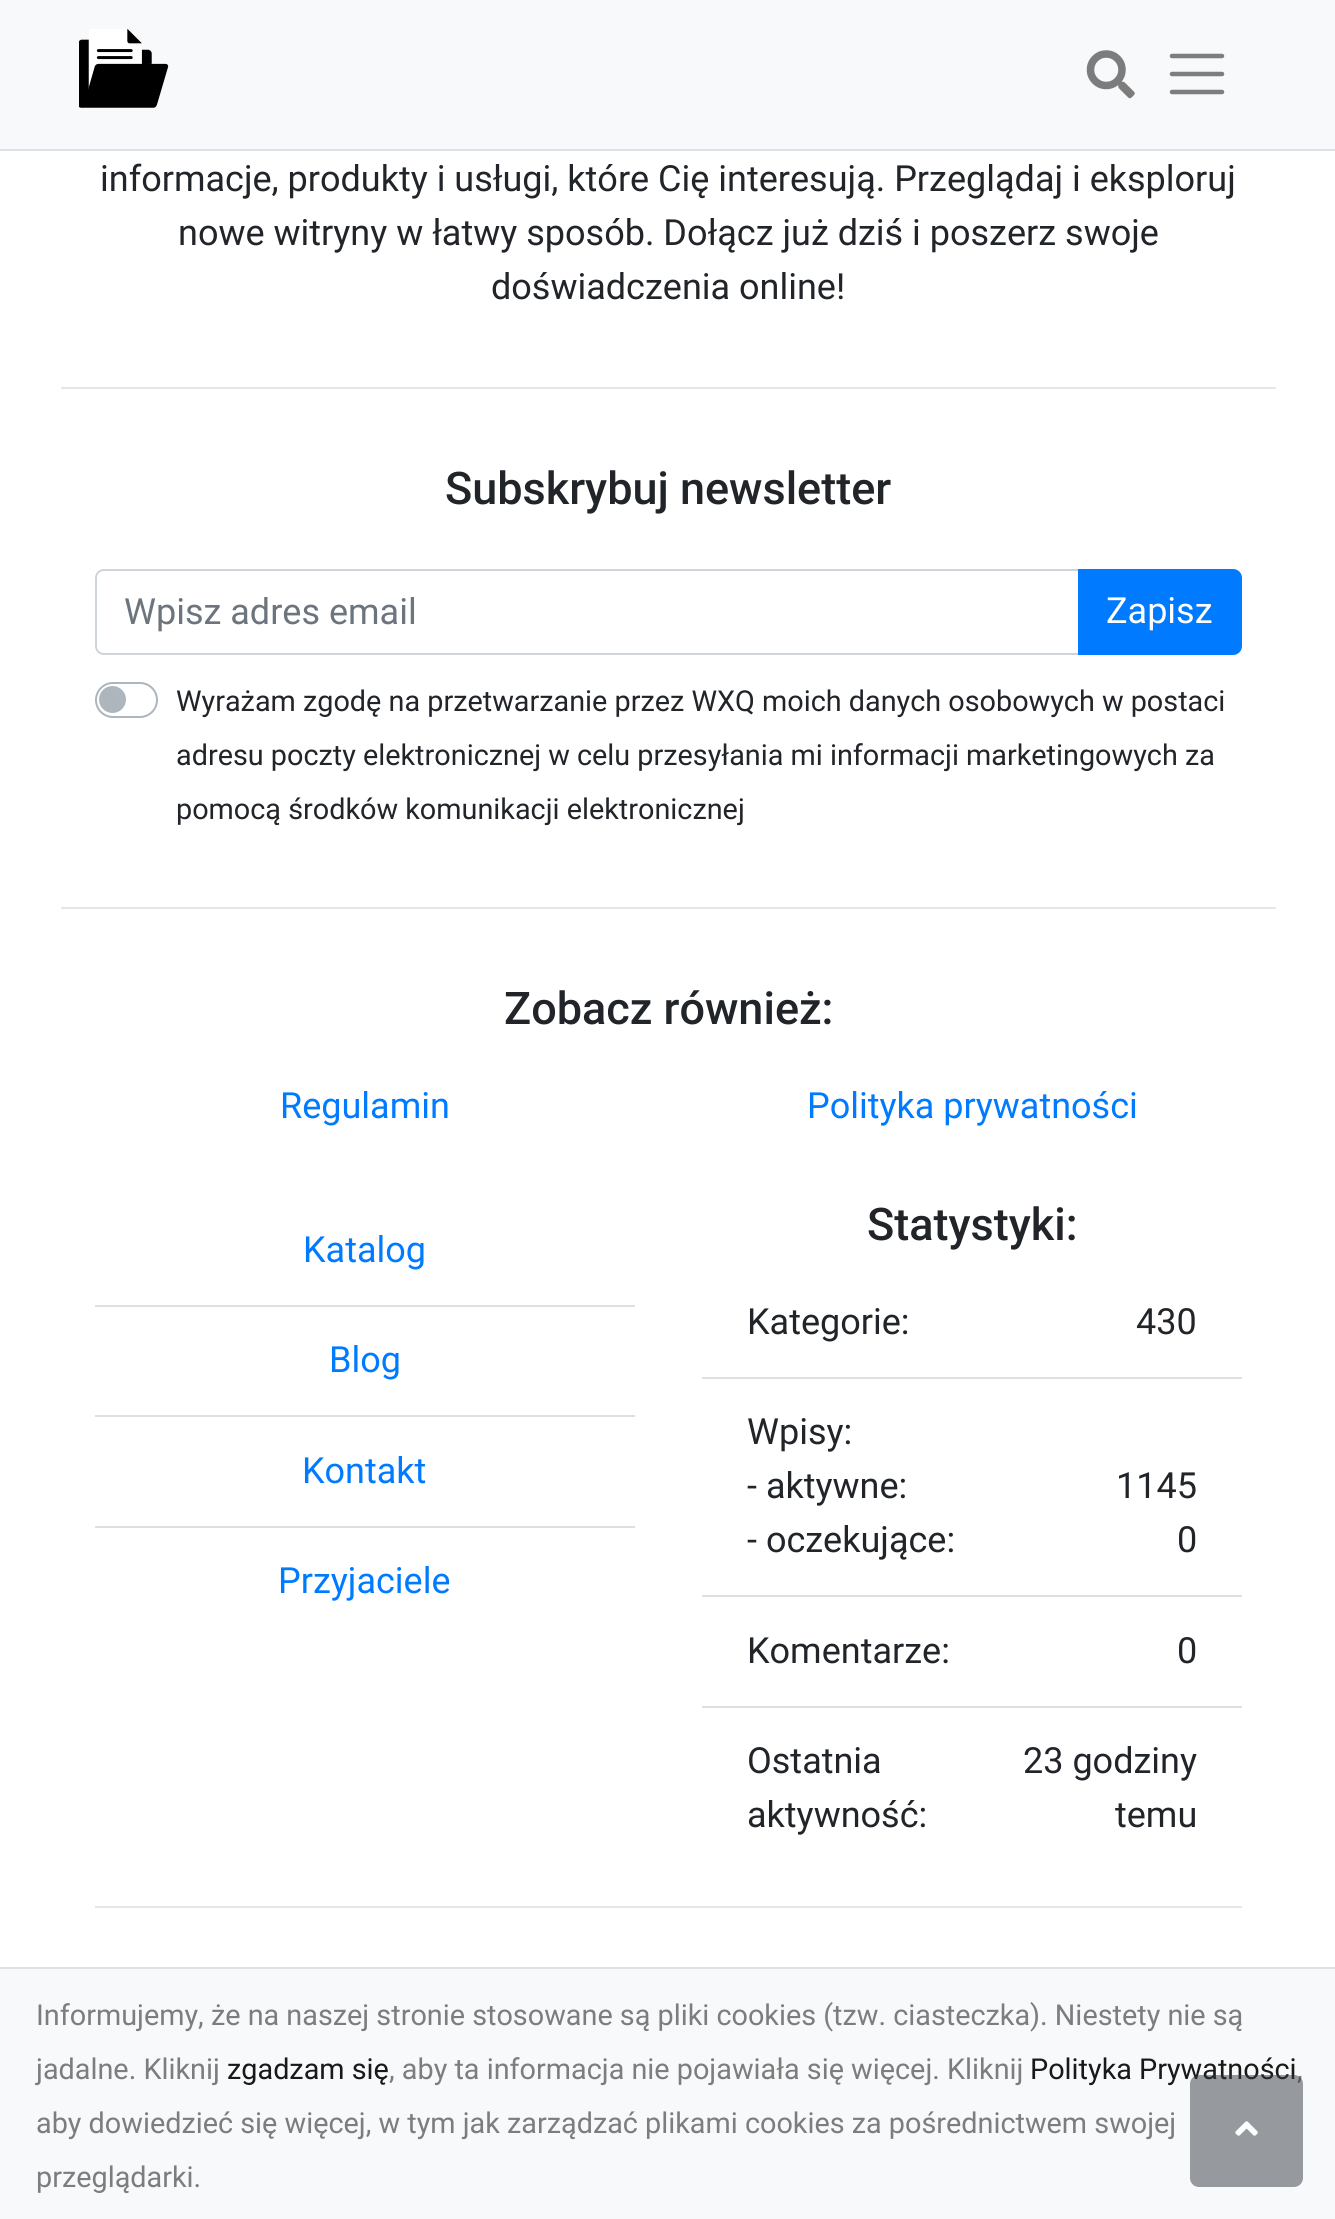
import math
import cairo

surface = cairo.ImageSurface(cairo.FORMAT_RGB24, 1335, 2219)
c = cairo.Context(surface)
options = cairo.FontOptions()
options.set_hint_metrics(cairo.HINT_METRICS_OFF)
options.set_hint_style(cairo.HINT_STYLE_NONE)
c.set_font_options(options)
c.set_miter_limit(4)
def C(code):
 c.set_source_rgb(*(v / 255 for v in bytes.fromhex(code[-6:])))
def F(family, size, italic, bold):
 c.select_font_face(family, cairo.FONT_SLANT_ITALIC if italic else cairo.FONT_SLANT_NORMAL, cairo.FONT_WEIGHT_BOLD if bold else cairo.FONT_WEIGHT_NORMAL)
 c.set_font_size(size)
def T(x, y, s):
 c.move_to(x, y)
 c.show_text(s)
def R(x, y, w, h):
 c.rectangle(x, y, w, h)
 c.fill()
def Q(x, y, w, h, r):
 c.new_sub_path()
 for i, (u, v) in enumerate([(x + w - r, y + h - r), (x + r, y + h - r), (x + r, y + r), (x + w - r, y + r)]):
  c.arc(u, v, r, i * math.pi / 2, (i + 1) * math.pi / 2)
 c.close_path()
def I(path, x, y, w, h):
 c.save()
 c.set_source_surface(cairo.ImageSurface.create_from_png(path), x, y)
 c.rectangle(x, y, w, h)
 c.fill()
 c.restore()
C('ffffff')
c.paint()
C('f8f9fa')
R(0,0,1335,149)
C('dee2e6')
R(0,149,1335,2)
I('1.png',79,29,90,79)
I('2.png',1086,50,49,49)
c.new_path()
c.move_to(1172,56)
c.line_to(1222,56)
c.move_to(1172,74)
c.line_to(1222,74)
c.move_to(1172,92)
c.line_to(1222,92)
C('7c7d7d')
c.set_line_width(4.5)
c.set_line_cap(cairo.LINE_CAP_ROUND)
c.stroke()
F('Roboto',36,0,0)
C('212529')
T(100,191,'informacje, produkty i usługi, które Cię interesują. Przeglądaj i eksploruj')
T(178,245,'nowe witryny w łatwy sposób. Dołącz już dziś i poszerz swoje')
T(491,299,'doświadczenia online!')
C('e6e6e6')
R(61,387,1215,2)
F('Roboto Medium',45,0,0)
C('212529')
T(445,504,'Subskrybuj newsletter')
c.new_path()
c.move_to(104,570)
c.line_to(1079,570)
c.line_to(1079,654)
c.line_to(104,654)
c.curve_to(99.5,654,96,650.5,96,646)
c.line_to(96,578)
c.curve_to(96,573.5,99.5,570,104,570)
c.close_path()
C('ced4da')
c.set_line_width(2)
c.set_line_cap(cairo.LINE_CAP_BUTT)
c.stroke()
F('Roboto',36,0,0)
C('6c757d')
T(124,624,'Wpisz adres email')
C('007bff')
c.new_path()
c.move_to(1079,570)
c.line_to(1233,570)
c.curve_to(1237.5,570,1241,573.5,1241,578)
c.line_to(1241,646)
c.curve_to(1241,650.5,1237.5,654,1233,654)
c.line_to(1079,654)
c.close_path()
c.fill_preserve()
c.stroke()
C('ffffff')
T(1106,623,'Zapisz')
Q(96,683,61,34,17)
C('adb5bd')
c.stroke()
c.arc(112.5,699.5,13.5,0,2 * math.pi)
c.fill()
F('Roboto',28.8,0,0)
C('212529')
T(176,711,'Wyrażam zgodę na przetwarzanie przez WXQ moich danych osobowych w postaci')
T(176,765,'adresu poczty elektronicznej w celu przesyłania mi informacji marketingowych za')
T(176,819,'pomocą środków komunikacji elektronicznej')
C('e6e6e6')
R(61,907,1215,2)
F('Roboto Medium',45,0,0)
C('212529')
T(504,1024,'Zobacz również:')
F('Roboto',36,0,0)
C('007bff')
T(280,1118,'Regulamin')
T(807,1118,'Polityka prywatności')
C('dfdfdf')
R(95,1305,540,2)
C('007bff')
T(303,1262,'Katalog')
C('dfdfdf')
R(95,1415,540,2)
C('007bff')
T(329,1372,'Blog')
C('dfdfdf')
R(95,1526,540,2)
C('007bff')
T(302,1483,'Kontakt')
T(278,1593,'Przyjaciele')
F('Roboto Medium',45,0,0)
C('212529')
T(867,1240,'Statystyki:')
C('dfdfdf')
R(702,1377,540,2)
F('Roboto',36,0,0)
C('212529')
T(747,1334,'Kategorie:')
T(1136,1334,'430')
C('dfdfdf')
R(702,1595,540,2)
C('212529')
T(747,1444,'Wpisy:')
T(747,1498,'- aktywne:')
T(1116,1498,'1145')
T(747,1552,'- oczekujące:')
T(1177,1552,'0')
C('dfdfdf')
R(702,1706,540,2)
C('212529')
T(747,1663,'Komentarze:')
T(1177,1663,'0')
T(747,1773,'Ostatnia')
T(747,1827,'aktywność:')
T(1023,1773,'23 godziny')
T(1115,1827,'temu')
C('e6e6e6')
R(95,1906,1147,2)
C('f8f9fa')
R(0,1969,1335,250)
C('dee2e6')
R(0,1967,1335,2)
F('Roboto',28.8,0,0)
C('7c7d7d')
T(36,2025,'Informujemy, że na naszej stronie stosowane są pliki cookies (tzw. ciasteczka). Niestety nie są')
T(36,2079,'jadalne. Kliknij')
C('191919')
T(227,2079,'zgadzam się')
C('7c7d7d')
T(389,2079,', aby ta informacja nie pojawiała się więcej. Kliknij')
C('191919')
T(1030,2079,'Polityka Prywatności')
C('7c7d7d')
T(1297,2079,',')
T(36,2133,'aby dowiedzieć się więcej, w tym jak zarządzać plikami cookies za pośrednictwem swojej')
T(36,2187,'przeglądarki.')
c.set_source_rgba(0.204,0.227,0.251,0.5)
Q(1190,2075,113,112,9)
c.fill()
I('3.png',1235,2121,23,15)
surface.write_to_png('o.png')
